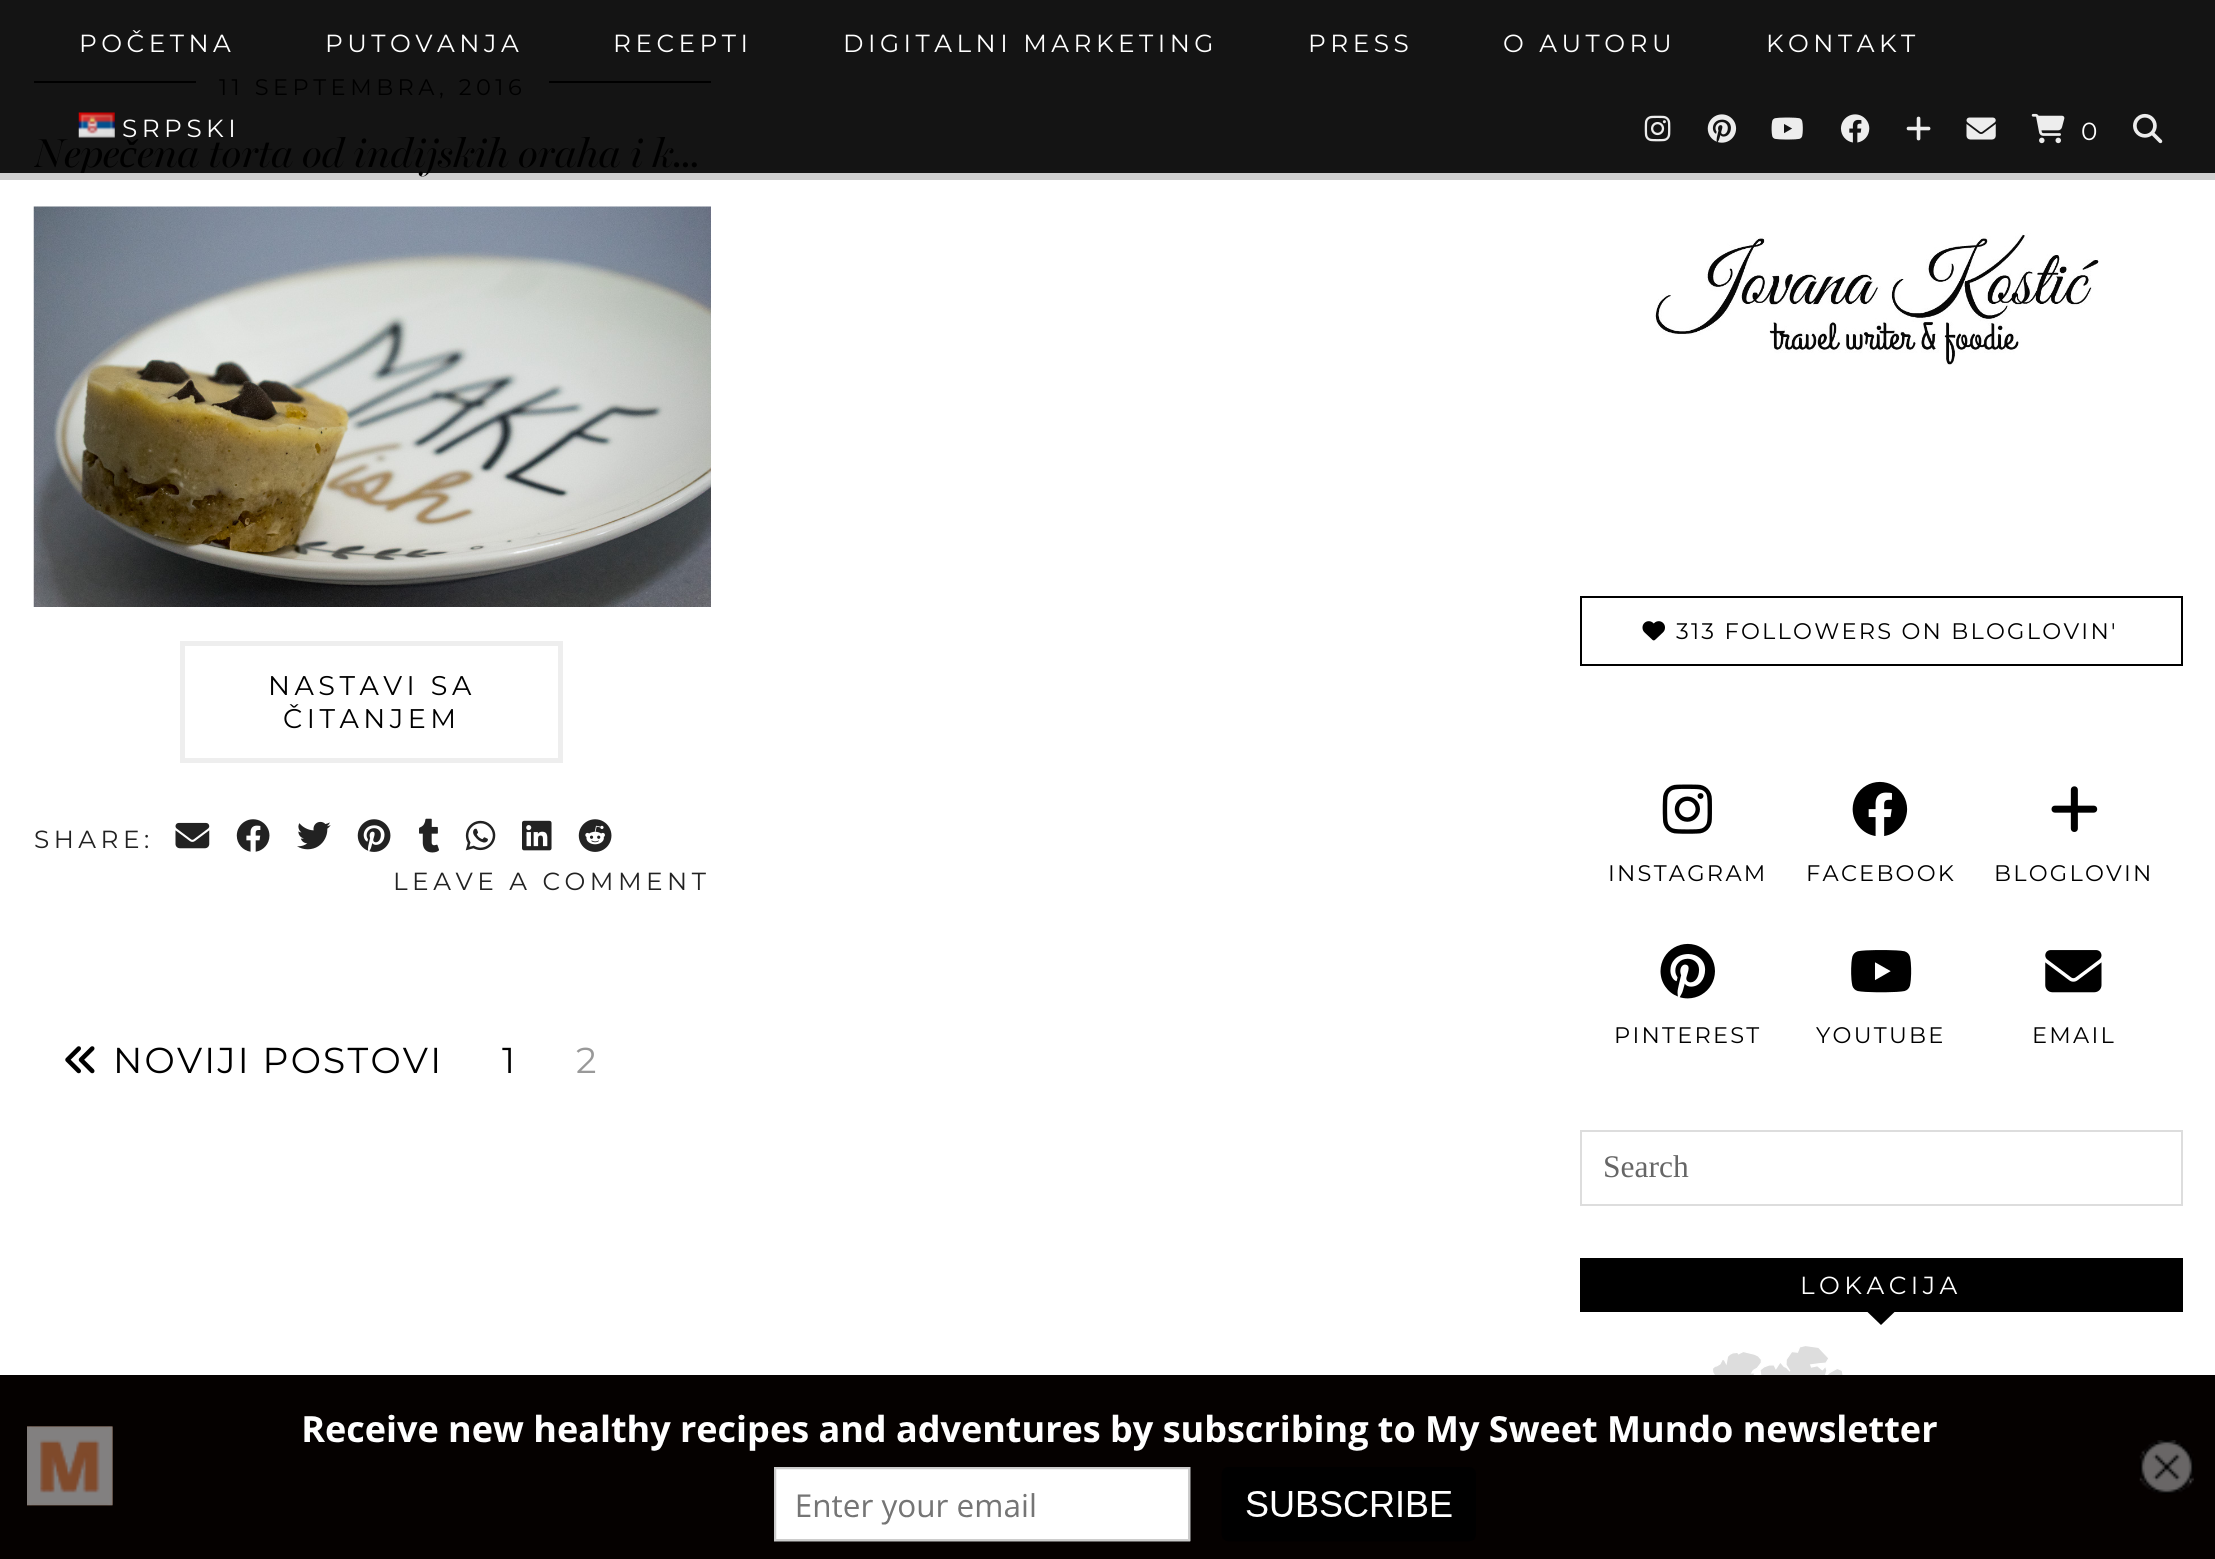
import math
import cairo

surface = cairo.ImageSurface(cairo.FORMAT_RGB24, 2215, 1559)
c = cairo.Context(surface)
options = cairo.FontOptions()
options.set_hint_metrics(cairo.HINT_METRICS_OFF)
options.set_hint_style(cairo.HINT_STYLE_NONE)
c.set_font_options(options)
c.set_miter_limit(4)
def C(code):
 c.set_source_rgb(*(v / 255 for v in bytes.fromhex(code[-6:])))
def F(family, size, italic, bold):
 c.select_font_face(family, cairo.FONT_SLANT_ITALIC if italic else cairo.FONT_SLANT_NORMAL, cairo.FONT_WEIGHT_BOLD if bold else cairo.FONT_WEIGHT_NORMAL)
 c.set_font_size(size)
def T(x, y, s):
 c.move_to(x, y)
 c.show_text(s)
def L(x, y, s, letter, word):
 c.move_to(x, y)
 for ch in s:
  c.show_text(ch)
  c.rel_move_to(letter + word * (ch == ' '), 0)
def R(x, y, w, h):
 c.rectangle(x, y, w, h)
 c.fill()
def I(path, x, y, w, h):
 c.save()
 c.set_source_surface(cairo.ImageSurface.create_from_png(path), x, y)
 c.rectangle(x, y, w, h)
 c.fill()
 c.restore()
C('ffffff')
c.paint()
C('141414')
R(0,0,2215,173)
C('d0d0d0')
R(0,173,2215,7)
F('Montserrat Thin',24.75,0,0)
C('ffffff')
L(79,52,'POČETNA',4.5,0)
L(325,52,'PUTOVANJA',4.5,0)
L(613,52,'RECEPTI',4.5,0)
L(843,52,'DIGITALNI MARKETING',4.5,0)
L(1308,52,'PRESS',4.5,0)
L(1503,52,'O AUTORU',4.5,0)
L(1766,52,'KONTAKT',4.5,0)
I('1.png',78,112,37,26)
L(122,137,'SRPSKI',4.5,0)
I('2.png',1644,115,27,27)
I('3.png',1707,114,30,29)
I('4.png',1771,117,32,23)
I('5.png',1840,114,30,29)
I('6.png',1906,116,25,25)
I('7.png',1966,117,30,23)
I('8.png',2031,113,34,31)
L(2081,140,'0',4.5,0)
I('9.png',2133,113,30,31)
C('000000')
R(34,81,677,2)
C('141414')
R(196,81,353,2)
F('Montserrat Thin',22.5,0,0)
C('000000')
L(219,95,'11 SEPTEMBRA, 2016',4.5,0)
c.save()
c.rectangle(34,133,677,40)
c.clip()
F('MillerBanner',40.5,1,0)
T(34,167,'Nepe')
c.restore()
F('Liberation Serif',40.5,1,0)
T(119,167,'č')
F('MillerBanner',40.5,1,0)
T(137,167,'ena torta od indijskih oraha i k…')
I('10.png',33,206,678,401)
c.rectangle(182.5,643.5,378,117)
C('eeeeee')
c.set_line_width(5)
c.stroke()
F('Montserrat Thin',27,0,0)
C('000000')
L(268,695,'NASTAVI SA',4.5,0)
L(283,728,'ČITANJEM',4.5,0)
F('Montserrat Thin',24.75,0,0)
C('222222')
L(34,848,'SHARE:',4.5,0)
I('11.png',175,822,35,27)
I('12.png',236,819,34,33)
I('13.png',297,821,34,29)
I('14.png',357,819,34,33)
I('15.png',419,818,20,35)
I('16.png',465,820,31,31)
I('17.png',522,820,30,31)
I('18.png',578,819,34,33)
L(393,890,'LEAVE A COMMENT',4.5,0)
I('19.png',65,1046,30,28)
F('Montserrat Thin',36,0,0)
C('000000')
L(113,1073,'NOVIJI POSTOVI',2.25,0)
L(502,1073,'1',2.25,0)
C('999999')
L(576,1073,'2',2.25,0)
I('20.png',1654,233,445,132)
c.rectangle(1581,597,601,68)
C('000000')
c.set_line_width(2)
c.stroke()
I('21.png',1642,621,23,20)
F('Montserrat Thin',22.5,0,0)
L(1676,639,'313 FOLLOWERS ON BLOGLOVIN\'',2.25,0)
I('22.png',1662,784,50,50)
L(1608,881,'INSTAGRAM',2.25,0)
I('23.png',1852,781,56,55)
L(1806,881,'FACEBOOK',2.25,0)
I('24.png',2051,786,47,46)
L(1994,881,'BLOGLOVIN',2.25,0)
I('25.png',1660,943,55,56)
L(1614,1043,'PINTEREST',2.25,0)
I('26.png',1851,950,61,43)
L(1816,1043,'YOUTUBE',2.25,0)
I('27.png',2045,950,57,43)
L(2032,1043,'EMAIL',2.25,0)
c.rectangle(1581,1131,601,74)
C('dddddd')
c.stroke()
F('Liberation Serif',31.5,0,0)
C('666666')
T(1603,1177,'Search')
C('000000')
R(1580,1258,603,54)
F('Montserrat Thin',24.75,0,0)
C('ffffff')
L(1800,1294,'LOKACIJA',4.5,0)
C('000000')
c.new_path()
c.move_to(1867.5,1312)
c.line_to(1894.5,1312)
c.line_to(1881,1325)
c.close_path()
c.fill()
I('28.png',1711,1346,133,29)
I('29.png',0,1375,2215,184)
surface.write_to_png('o.png')
